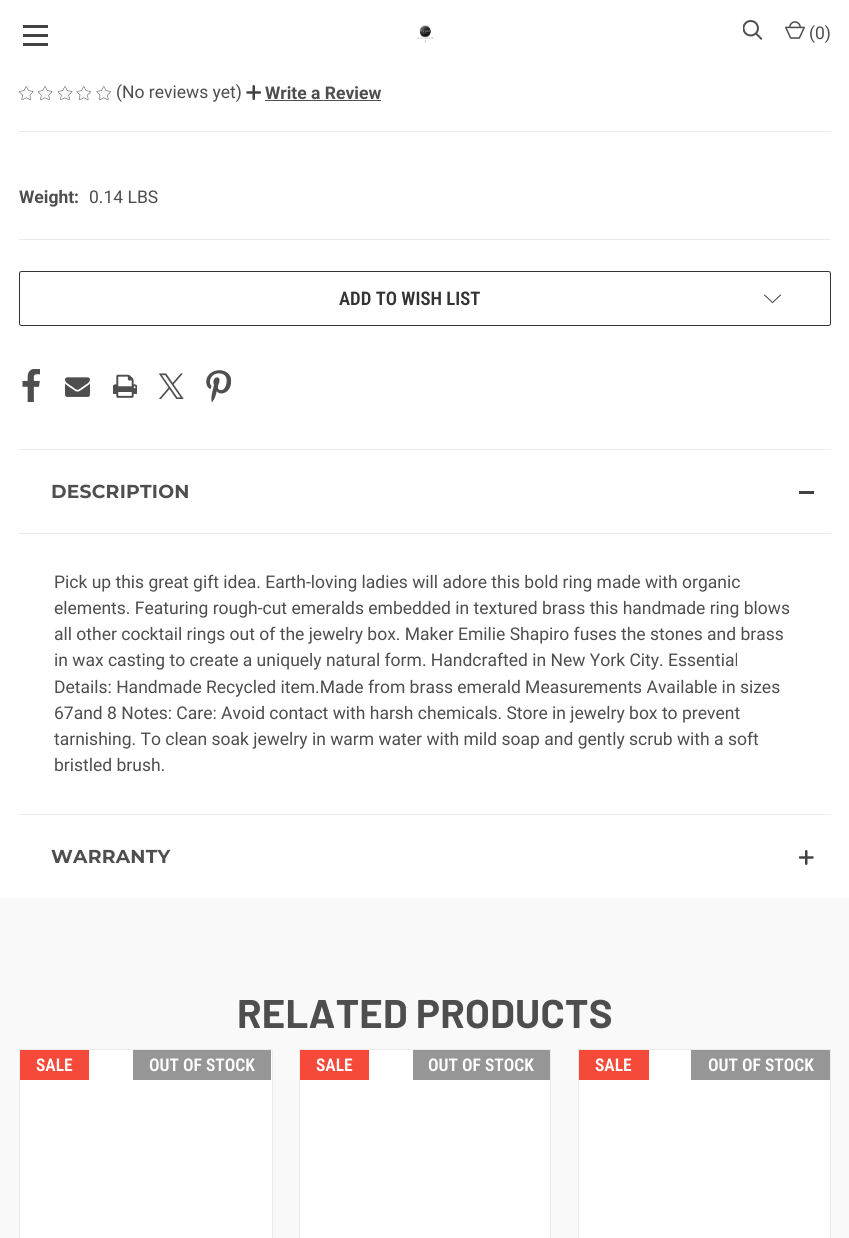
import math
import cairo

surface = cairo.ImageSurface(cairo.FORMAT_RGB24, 849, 1238)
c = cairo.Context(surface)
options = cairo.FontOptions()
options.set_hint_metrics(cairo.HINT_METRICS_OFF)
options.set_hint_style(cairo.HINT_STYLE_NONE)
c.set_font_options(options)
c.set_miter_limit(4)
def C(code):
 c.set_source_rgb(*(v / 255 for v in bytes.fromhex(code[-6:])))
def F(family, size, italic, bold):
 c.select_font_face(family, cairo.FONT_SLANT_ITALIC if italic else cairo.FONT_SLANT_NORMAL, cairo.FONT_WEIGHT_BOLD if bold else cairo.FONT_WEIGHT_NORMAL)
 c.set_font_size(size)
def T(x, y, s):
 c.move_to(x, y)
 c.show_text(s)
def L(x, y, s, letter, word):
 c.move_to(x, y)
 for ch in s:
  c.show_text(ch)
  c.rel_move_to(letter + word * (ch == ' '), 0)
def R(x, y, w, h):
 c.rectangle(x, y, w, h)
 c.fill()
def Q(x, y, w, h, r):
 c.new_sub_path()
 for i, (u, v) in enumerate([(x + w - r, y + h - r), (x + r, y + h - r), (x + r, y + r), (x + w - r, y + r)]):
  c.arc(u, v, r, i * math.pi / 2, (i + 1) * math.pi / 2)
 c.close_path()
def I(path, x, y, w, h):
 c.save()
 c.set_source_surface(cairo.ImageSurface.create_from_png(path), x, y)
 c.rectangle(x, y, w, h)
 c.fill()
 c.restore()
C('ffffff')
c.paint()
C('424242')
R(23,34,25,3)
R(23,25,25,3)
R(23,43,25,3)
I('1.png',417,25,17,17)
I('2.png',743,20,20,20)
I('3.png',785,21,20,18)
F('Roboto',17.5,0,0)
C('4e4e4e')
T(809,39,'(0)')
I('4.png',19,86,15,14)
I('5.png',38,86,15,14)
I('5.png',58,86,15,14)
I('6.png',76,86,15,14)
I('6.png',96,86,15,14)
T(116,98,'(No reviews yet)')
I('7.png',246,85,15,15)
F('Roboto',17.5,0,1)
T(265,99,'Write a Review')
R(265,100,116,1)
C('ebebeb')
R(19,131,812,1)
R(19,239,812,1)
C('4e4e4e')
T(19,203,'Weight:')
F('Roboto',17.5,0,0)
T(89,203,'0.14 LBS')
Q(19.5,271.5,811,54,2)
C('333333')
c.set_line_width(1)
c.stroke()
F('Roboto Condensed SemiBold',18.75,0,0)
T(339,305,'ADD TO WISH LIST')
I('8.png',764,294,17,10)
I('9.png',22,369,18,33)
I('10.png',65,377,25,20)
I('11.png',113,374,24,24)
I('12.png',159,373,25,26)
I('13.png',206,370,25,33)
C('ebebeb')
R(19,449,812,1)
R(19,533,812,1)
F('Montserrat',18.75,0,1)
C('4e4e4e')
L(51,498,'DESCRIPTION',.25,0)
C('424242')
R(799,491,15,3)
F('Roboto',17.5,0,0)
C('4e4e4e')
T(54,588,'Pick up this great gift idea. Earth-loving ladies will adore this bold ring made with organic')
T(54,614,'elements. Featuring rough-cut emeralds embedded in textured brass this handmade ring blows')
T(54,640,'all other cocktail rings out of the jewelry box. Maker Emilie Shapiro fuses the stones and brass')
T(54,666,'in wax casting to create a uniquely natural form. Handcrafted in New York City. Essential')
T(54,693,'Details: Handmade Recycled item.Made from brass emerald Measurements Available in sizes')
T(54,719,'67and 8 Notes: Care: Avoid contact with harsh chemicals. Store in jewelry box to prevent')
T(54,745,'tarnishing. To clean soak jewelry in warm water with mild soap and gently scrub with a soft')
T(54,771,'bristled brush.')
C('ebebeb')
R(19,814,812,1)
F('Montserrat',18.75,0,1)
C('4e4e4e')
L(51,863,'WARRANTY',.25,0)
I('14.png',799,850,15,15)
C('f9f9f9')
R(0,898,849,340)
F('Barlow',40,0,1)
C('4e4e4e')
L(237,1028,'RELATED PRODUCTS',.25,0)
C('ffffff')
c.rectangle(19.5,1049.5,253,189)
c.fill_preserve()
C('ebebeb')
c.stroke()
C('f54a3a')
R(20,1050,69,30)
F('Roboto Condensed SemiBold',17.5,0,0)
C('ffffff')
T(36,1071,'SALE')
C('969696')
R(133,1050,138,30)
C('ffffff')
T(149,1071,'OUT OF STOCK')
c.rectangle(299.5,1049.5,251,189)
c.fill_preserve()
C('ebebeb')
c.stroke()
C('f54a3a')
R(300,1050,69,30)
C('ffffff')
T(316,1071,'SALE')
C('969696')
R(413,1050,137,30)
C('ffffff')
T(428,1071,'OUT OF STOCK')
c.rectangle(578.5,1049.5,252,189)
c.fill_preserve()
C('ebebeb')
c.stroke()
C('f54a3a')
R(579,1050,70,30)
C('ffffff')
T(595,1071,'SALE')
C('969696')
R(691,1050,139,30)
C('ffffff')
T(708,1071,'OUT OF STOCK')
surface.write_to_png('o.png')
